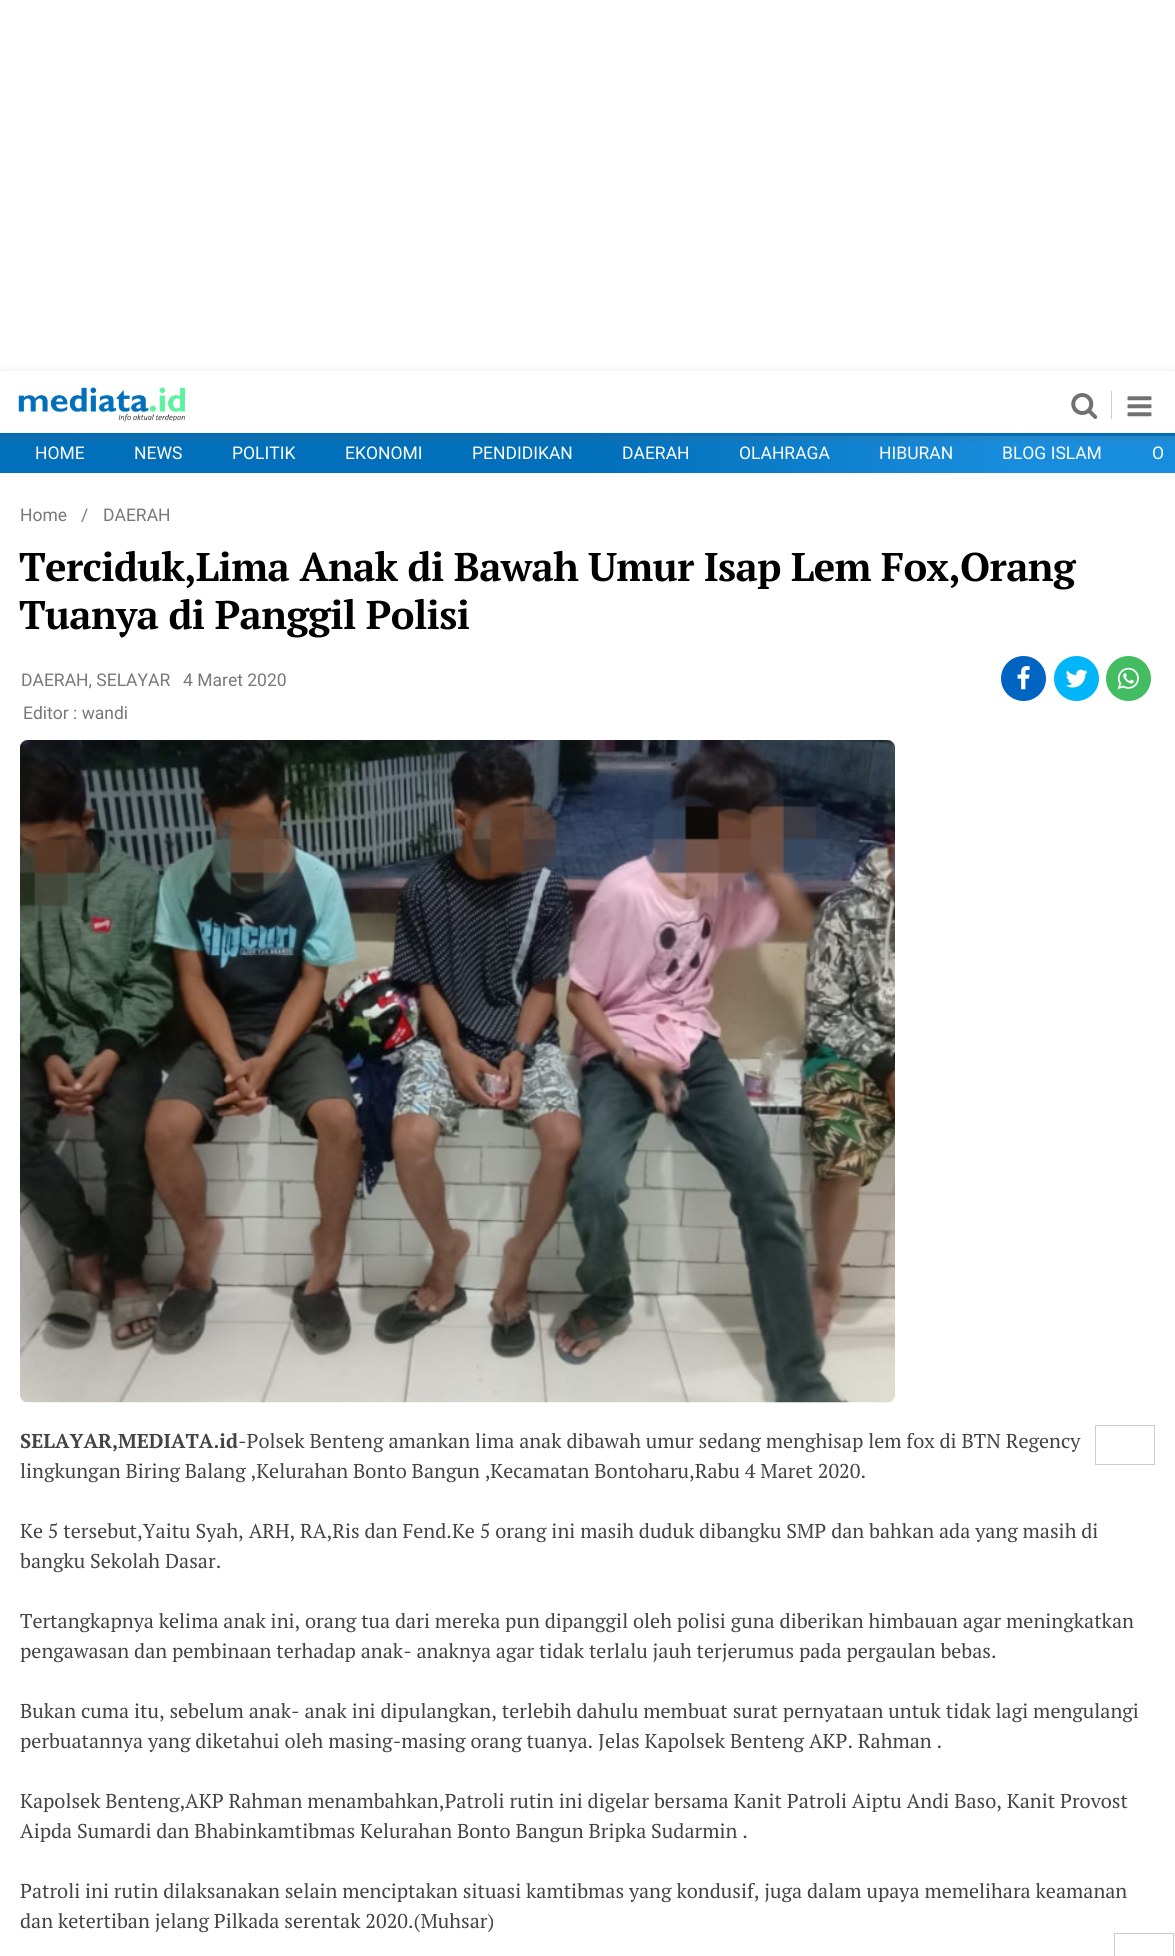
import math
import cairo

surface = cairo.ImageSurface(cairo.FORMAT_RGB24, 1175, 1956)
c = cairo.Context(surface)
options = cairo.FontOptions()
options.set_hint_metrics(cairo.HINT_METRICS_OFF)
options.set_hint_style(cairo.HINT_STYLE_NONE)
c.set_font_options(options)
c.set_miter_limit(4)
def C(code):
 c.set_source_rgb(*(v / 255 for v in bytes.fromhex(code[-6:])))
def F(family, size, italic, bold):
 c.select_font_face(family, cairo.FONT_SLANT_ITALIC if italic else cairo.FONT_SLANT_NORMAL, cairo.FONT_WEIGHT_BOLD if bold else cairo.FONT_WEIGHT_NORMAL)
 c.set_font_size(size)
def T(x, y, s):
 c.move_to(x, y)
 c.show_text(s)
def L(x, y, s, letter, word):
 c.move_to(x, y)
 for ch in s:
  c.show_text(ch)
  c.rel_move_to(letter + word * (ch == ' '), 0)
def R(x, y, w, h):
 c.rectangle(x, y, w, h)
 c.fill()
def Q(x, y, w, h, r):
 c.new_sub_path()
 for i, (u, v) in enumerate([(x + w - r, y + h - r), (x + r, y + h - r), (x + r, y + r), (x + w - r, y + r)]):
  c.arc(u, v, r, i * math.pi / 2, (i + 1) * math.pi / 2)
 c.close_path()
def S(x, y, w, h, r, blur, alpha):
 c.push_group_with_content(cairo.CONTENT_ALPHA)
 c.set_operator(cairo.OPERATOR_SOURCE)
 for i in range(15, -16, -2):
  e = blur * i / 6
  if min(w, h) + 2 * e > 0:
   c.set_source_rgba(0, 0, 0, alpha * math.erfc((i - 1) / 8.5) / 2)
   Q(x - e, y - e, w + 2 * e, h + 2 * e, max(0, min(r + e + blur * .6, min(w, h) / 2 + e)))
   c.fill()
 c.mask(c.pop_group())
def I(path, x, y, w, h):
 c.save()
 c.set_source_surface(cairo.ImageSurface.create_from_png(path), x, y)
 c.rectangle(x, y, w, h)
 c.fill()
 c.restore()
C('ffffff')
c.paint()
gradient = cairo.LinearGradient(0,454,1175,454)
gradient.add_color_stop_rgba(.5,0.004,0.435,0.729,1)
gradient.add_color_stop_rgba(.86,0.098,0.553,0.867,1)
c.set_source(gradient)
R(0,436,1175,37)
C('646464')
S(0,374,1175,64,0,4,.3)
C('ffffff')
R(0,371,1175,62)
C('016fba')
R(0,433,1175,3)
I('1.png',18,387,167,35)
C('d2cdcd')
R(1111,391,1,28)
I('2.png',1071,393,27,26)
I('3.png',1127,396,25,21)
F('Roboto',17.5,0,0)
C('ffffff')
T(35,459,'HOME')
T(134,459,'NEWS')
T(232,459,'POLITIK')
T(345,459,'EKONOMI')
T(472,459,'PENDIDIKAN')
T(622,459,'DAERAH')
T(739,459,'OLAHRAGA')
T(879,459,'HIBURAN')
T(1002,459,'BLOG ISLAM')
T(1152,459,'O')
C('787878')
T(20,521,'Home')
T(81,521,'/')
T(103,521,'DAERAH')
F('PT Serif',40,0,1)
C('000000')
L(19,581,'Terciduk,Lima Anak di Bawah Umur Isap Lem Fox,Orang',-.62,0)
L(19,629,'Tuanya di Panggil Polisi',-.62,0)
F('Roboto',17.5,0,0)
C('787878')
T(21,686,'DAERAH, SELAYAR')
T(183,686,'4 Maret 2020')
C('0064c2')
c.new_path()
c.arc(1023.5,678.5,22.5,0,2 * math.pi)
c.fill()
I('4.png',1017,666,13,24)
C('00b6f9')
c.arc(1076.5,678.5,22.5,0,2 * math.pi)
c.fill()
I('5.png',1065,669,23,19)
C('43bc62')
c.arc(1128.5,678.5,22.5,0,2 * math.pi)
c.fill()
I('6.png',1117,667,22,23)
C('787878')
T(23,719,'Editor : wandi')
I('7.png',20,740,875,663)
F('PT Serif',20,0,1)
C('444444')
T(20,1448,'SELAYAR,MEDIATA.id')
F('PT Serif',20,0,0)
T(238,1448,'-Polsek Benteng amankan lima anak dibawah umur sedang menghisap lem fox di BTN Regency')
T(20,1478,'lingkungan Biring Balang ,Kelurahan Bonto Bangun ,Kecamatan Bontoharu,Rabu 4 Maret 2020.')
c.rectangle(1095.5,1425.5,59,39)
C('cccccc')
c.set_line_width(1)
c.stroke()
C('444444')
T(20,1538,'Ke 5 tersebut,Yaitu Syah, ARH, RA,Ris dan Fend.Ke 5 orang ini masih duduk dibangku SMP dan bahkan ada yang masih di')
T(20,1568,'bangku Sekolah Dasar.')
T(20,1628,'Tertangkapnya kelima anak ini, orang tua dari mereka pun dipanggil oleh polisi guna diberikan himbauan agar meningkatkan')
T(20,1658,'pengawasan dan pembinaan terhadap anak- anaknya agar tidak terlalu jauh terjerumus pada pergaulan bebas.')
T(20,1718,'Bukan cuma itu, sebelum anak- anak ini dipulangkan, terlebih dahulu membuat surat pernyataan untuk tidak lagi mengulangi')
T(20,1748,'perbuatannya yang diketahui oleh masing-masing orang tuanya. Jelas Kapolsek Benteng AKP. Rahman .')
T(20,1808,'Kapolsek Benteng,AKP Rahman menambahkan,Patroli rutin ini digelar bersama Kanit Patroli Aiptu Andi Baso, Kanit Provost')
T(20,1838,'Aipda Sumardi dan Bhabinkamtibmas Kelurahan Bonto Bangun Bripka Sudarmin .')
T(20,1898,'Patroli ini rutin dilaksanakan selain menciptakan situasi kamtibmas yang kondusif, juga dalam upaya memelihara keamanan')
T(20,1928,'dan ketertiban jelang Pilkada serentak 2020.(Muhsar)')
c.rectangle(1114.5,1933.5,59,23)
C('cccccc')
c.stroke()
surface.write_to_png('o.png')
